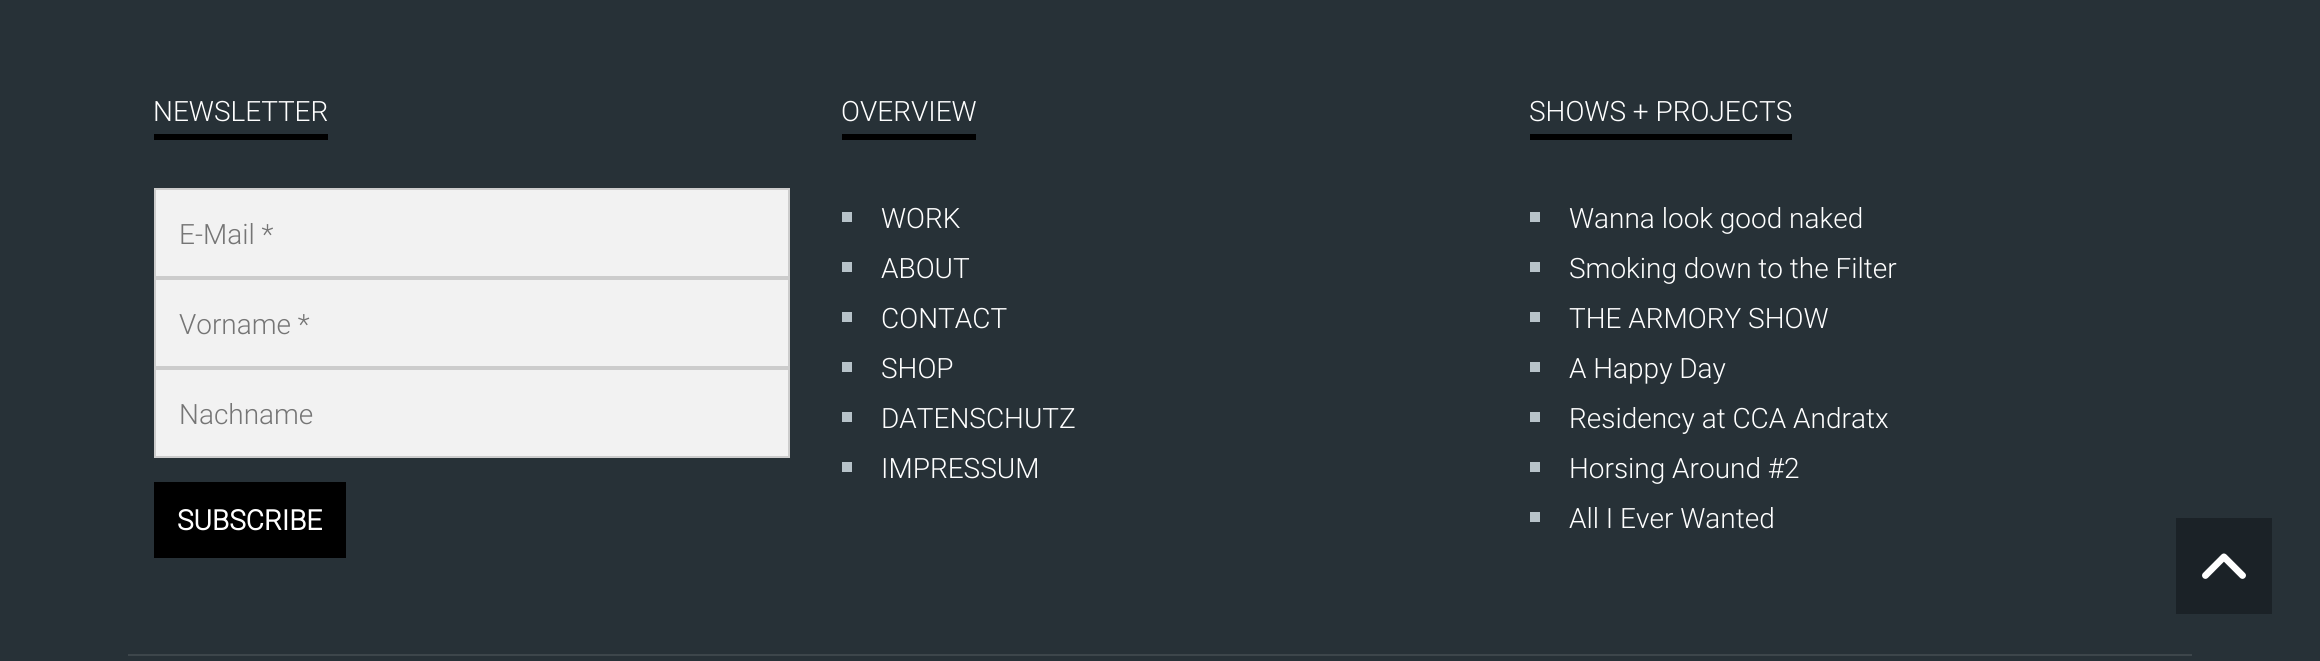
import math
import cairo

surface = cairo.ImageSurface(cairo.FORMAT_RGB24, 2320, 661)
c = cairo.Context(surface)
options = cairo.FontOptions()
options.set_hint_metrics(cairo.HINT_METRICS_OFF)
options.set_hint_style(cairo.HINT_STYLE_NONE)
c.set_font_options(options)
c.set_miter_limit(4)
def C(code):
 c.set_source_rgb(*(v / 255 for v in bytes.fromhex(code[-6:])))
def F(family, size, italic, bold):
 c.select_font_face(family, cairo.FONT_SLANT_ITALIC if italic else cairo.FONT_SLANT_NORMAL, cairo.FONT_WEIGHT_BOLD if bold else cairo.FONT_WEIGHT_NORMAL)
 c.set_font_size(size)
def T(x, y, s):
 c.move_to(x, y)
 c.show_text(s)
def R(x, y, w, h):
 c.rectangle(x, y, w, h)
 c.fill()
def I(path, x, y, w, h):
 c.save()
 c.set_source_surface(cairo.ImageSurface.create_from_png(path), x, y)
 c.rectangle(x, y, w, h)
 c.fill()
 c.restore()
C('273137')
c.paint()
C('3d464b')
R(128,654,2064,2)
C('000000')
R(154,134,174,6)
F('Roboto Light',28,0,0)
C('ffffff')
T(153,121,'NEWSLETTER')
C('f2f2f2')
c.rectangle(155,189,634,88)
c.fill_preserve()
C('cccccc')
c.stroke()
C('757575')
T(179,244,'E-Mail *')
C('f2f2f2')
c.rectangle(155,279,634,88)
c.fill_preserve()
C('cccccc')
c.stroke()
C('757575')
T(179,334,'Vorname *')
C('f2f2f2')
c.rectangle(155,369,634,88)
c.fill_preserve()
C('cccccc')
c.stroke()
C('757575')
T(179,424,'Nachname')
C('000000')
R(154,482,192,76)
F('Roboto',28,0,1)
C('ffffff')
T(177,530,'SUBSCRIBE')
C('000000')
R(842,134,134,6)
F('Roboto Light',28,0,0)
C('ffffff')
T(841,121,'OVERVIEW')
C('b7c3c9')
R(842,212,10,10)
C('ffffff')
T(881,228,'WORK')
C('b7c3c9')
R(842,262,10,10)
C('ffffff')
T(881,278,'ABOUT')
C('b7c3c9')
R(842,312,10,10)
C('ffffff')
T(881,328,'CONTACT')
C('b7c3c9')
R(842,362,10,10)
C('ffffff')
T(881,378,'SHOP')
C('b7c3c9')
R(842,412,10,10)
C('ffffff')
T(881,428,'DATENSCHUTZ')
C('b7c3c9')
R(842,462,10,10)
C('ffffff')
T(881,478,'IMPRESSUM')
C('000000')
R(1530,134,262,6)
C('ffffff')
T(1529,121,'SHOWS + PROJECTS')
C('b7c3c9')
R(1530,212,10,10)
C('ffffff')
T(1569,228,'Wanna look good naked')
C('b7c3c9')
R(1530,262,10,10)
C('ffffff')
T(1569,278,'Smoking down to the Filter')
C('b7c3c9')
R(1530,312,10,10)
C('ffffff')
T(1569,328,'THE ARMORY SHOW')
C('b7c3c9')
R(1530,362,10,10)
C('ffffff')
T(1569,378,'A Happy Day')
C('b7c3c9')
R(1530,412,10,10)
C('ffffff')
T(1569,428,'Residency at CCA Andratx')
C('b7c3c9')
R(1530,462,10,10)
C('ffffff')
T(1569,478,'Horsing Around #2')
C('b7c3c9')
R(1530,512,10,10)
C('ffffff')
T(1569,528,'All I Ever Wanted')
C('1b2227')
R(2176,518,96,96)
I('1.png',2202,553,44,26)
surface.write_to_png('o.png')
